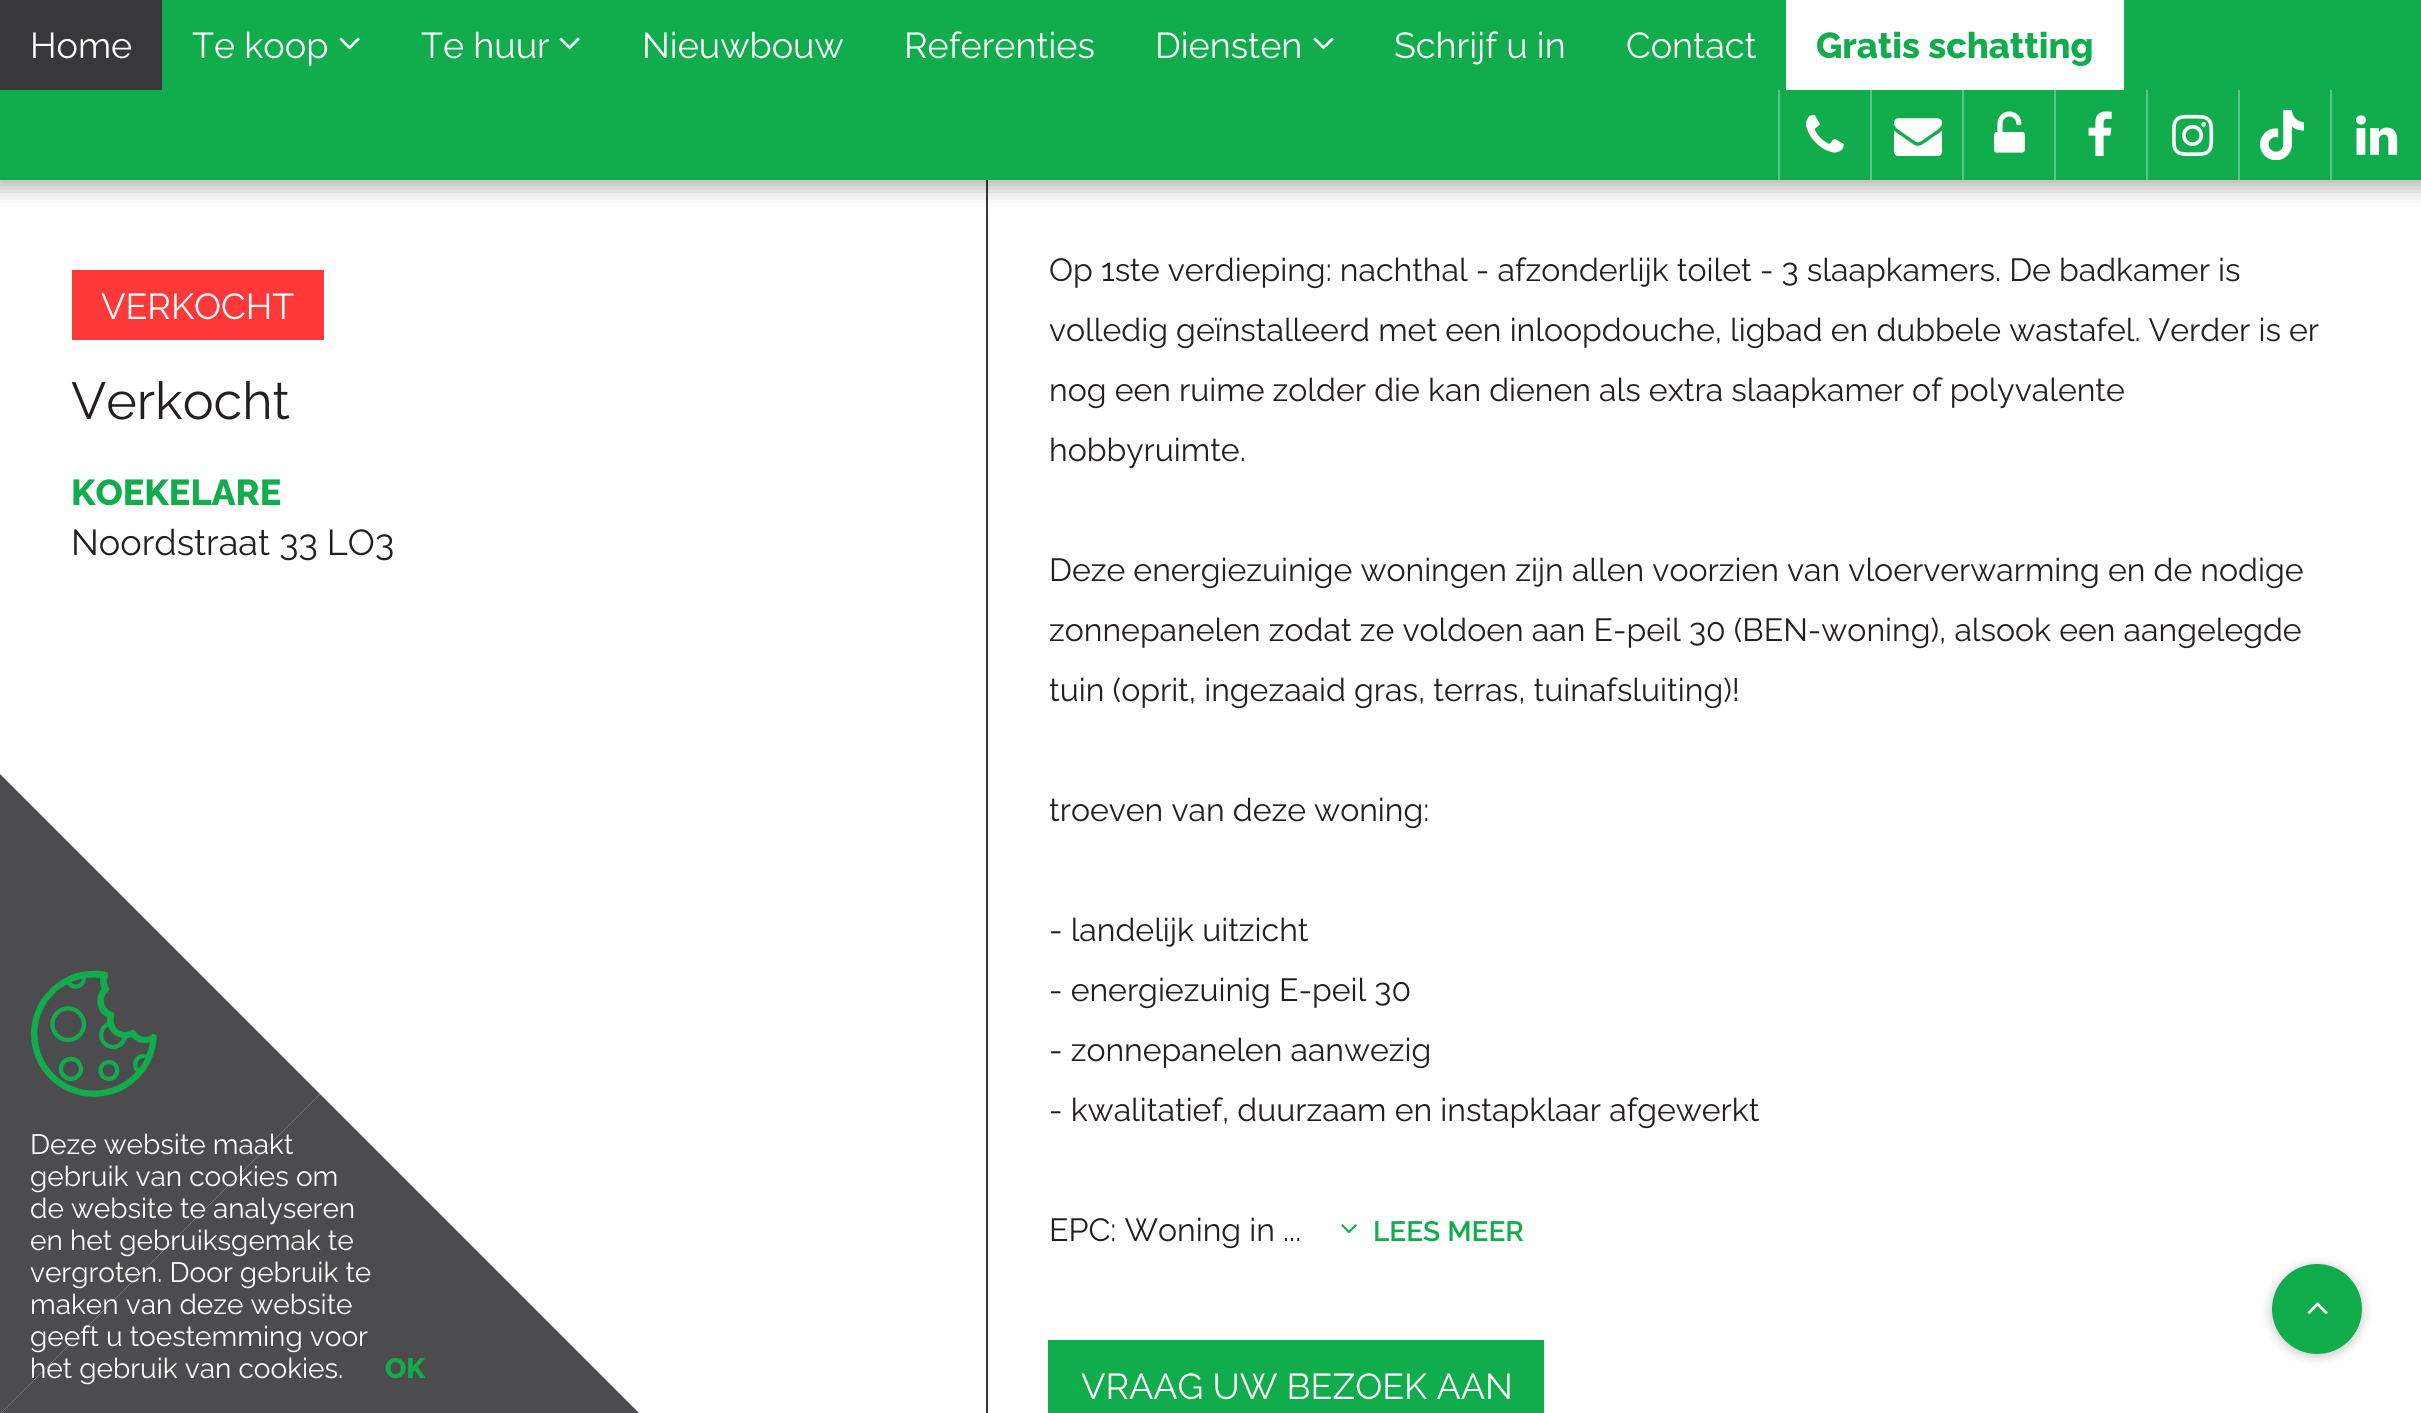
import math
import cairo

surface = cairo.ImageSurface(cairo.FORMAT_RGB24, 2421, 1413)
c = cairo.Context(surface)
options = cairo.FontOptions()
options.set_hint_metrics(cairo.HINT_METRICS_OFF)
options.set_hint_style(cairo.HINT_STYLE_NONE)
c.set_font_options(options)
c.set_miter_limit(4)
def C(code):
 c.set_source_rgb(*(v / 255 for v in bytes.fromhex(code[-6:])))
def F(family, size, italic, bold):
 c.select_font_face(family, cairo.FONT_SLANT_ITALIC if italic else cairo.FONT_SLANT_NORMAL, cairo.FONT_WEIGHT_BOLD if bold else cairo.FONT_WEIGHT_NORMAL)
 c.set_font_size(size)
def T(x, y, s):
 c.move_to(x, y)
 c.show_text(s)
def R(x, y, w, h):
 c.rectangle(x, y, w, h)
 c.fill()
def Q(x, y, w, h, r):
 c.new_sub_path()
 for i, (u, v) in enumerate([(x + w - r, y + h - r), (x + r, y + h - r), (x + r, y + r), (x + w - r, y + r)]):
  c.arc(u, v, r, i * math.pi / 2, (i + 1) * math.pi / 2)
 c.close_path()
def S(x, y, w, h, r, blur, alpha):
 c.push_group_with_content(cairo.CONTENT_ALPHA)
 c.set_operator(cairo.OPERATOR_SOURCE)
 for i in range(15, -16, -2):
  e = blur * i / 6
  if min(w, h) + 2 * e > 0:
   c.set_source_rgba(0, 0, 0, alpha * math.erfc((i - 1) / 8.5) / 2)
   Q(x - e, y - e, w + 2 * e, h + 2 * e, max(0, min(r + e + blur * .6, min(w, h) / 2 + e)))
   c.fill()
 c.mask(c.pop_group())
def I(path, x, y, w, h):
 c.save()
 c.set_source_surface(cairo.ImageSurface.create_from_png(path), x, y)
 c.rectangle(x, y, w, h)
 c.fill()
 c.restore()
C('ffffff')
c.paint()
C('38383a')
R(986,180,2,1233)
C('000000')
S(-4,0,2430,188,0,10,.3)
C('11ac4c')
R(0,0,2421,180)
C('38383a')
R(0,0,162,90)
F('Raleway',36,0,0)
C('ffffff')
T(30,58,'Home')
T(192,58,'Te koop')
I('1.png',339,37,21,13)
T(421,58,'Te huur')
I('1.png',559,37,21,13)
T(642,58,'Nieuwbouw')
T(904,58,'Referenties')
T(1155,58,'Diensten')
I('1.png',1313,37,21,13)
T(1394,58,'Schrijf u in')
T(1626,58,'Contact')
R(1786,0,338,90)
F('Raleway ExtraBold',36,0,0)
C('11ac4c')
T(1816,58,'Gratis schatting')
C('58c582')
R(1778,90,2,90)
I('2.png',1806,114,38,39)
R(1870,90,2,90)
I('3.png',1894,118,48,38)
R(1962,90,2,90)
I('4.png',1994,111,31,42)
R(2054,90,2,90)
I('5.png',2088,111,24,45)
R(2146,90,2,90)
I('6.png',2172,114,42,42)
R(2238,90,2,90)
I('7.png',2260,110,44,50)
R(2330,90,2,90)
I('8.png',2356,115,42,40)
C('ff3939')
R(72,270,252,70)
F('Raleway',36,0,0)
C('ffffff')
T(101,319,'VERKOCHT')
F('Raleway',52,0,0)
C('231f20')
T(71,419,'Verkocht')
F('Raleway ExtraBold',36,0,0)
C('11ac4c')
T(71,505,'KOEKELARE')
F('Raleway',36,0,0)
C('231f20')
T(71,555,'Noordstraat 33 LO3')
F('Raleway',32,0,0)
T(1049,281,'Op 1ste verdieping: nachthal - afzonderlijk toilet - 3 slaapkamers. De badkamer is')
T(1049,341,'volledig geïnstalleerd met een inloopdouche, ligbad en dubbele wastafel. Verder is er')
T(1049,401,'nog een ruime zolder die kan dienen als extra slaapkamer of polyvalente')
T(1049,461,'hobbyruimte.')
T(1049,581,'Deze energiezuinige woningen zijn allen voorzien van vloerverwarming en de nodige')
T(1049,641,'zonnepanelen zodat ze voldoen aan E-peil 30 (BEN-woning), alsook een aangelegde')
T(1049,701,'tuin (oprit, ingezaaid gras, terras, tuinafsluiting)!')
T(1049,821,'troeven van deze woning:')
T(1049,941,'- landelijk uitzicht')
T(1049,1001,'- energiezuinig E-peil 30')
T(1049,1061,'- zonnepanelen aanwezig')
T(1049,1121,'- kwalitatief, duurzaam en instapklaar afgewerkt')
T(1049,1241,'EPC: Woning in ...')
I('9.png',1341,1224,16,10)
F('Raleway SemiBold',28,0,0)
C('11ac4c')
T(1373,1241,'LEES MEER')
R(1048,1340,496,73)
F('Raleway',36,0,0)
C('ffffff')
T(1081,1399,'VRAAG UW BEZOEK AAN')
C('4c4c4e')
c.new_path()
c.move_to(640,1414)
c.line_to(0,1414)
c.line_to(320,1094)
c.close_path()
c.fill()
c.new_path()
c.move_to(0,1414)
c.line_to(0,774)
c.line_to(320,1094)
c.close_path()
c.fill()
I('10.png',31,970,126,127)
F('Raleway',28,0,0)
C('ffffff')
T(30,1154,'Deze website maakt')
T(30,1186,'gebruik van cookies om')
T(30,1218,'de website te analyseren')
T(30,1250,'en het gebruiksgemak te')
T(30,1282,'vergroten. Door gebruik te')
T(30,1314,'maken van deze website')
T(30,1346,'geeft u toestemming voor')
T(30,1378,'het gebruik van cookies.')
F('Raleway ExtraBold',28,0,0)
C('11ac4c')
T(385,1378,'OK')
c.new_path()
c.arc(2317,1309,45,0,2 * math.pi)
c.fill()
c.save()
c.set_fill_rule(cairo.FILL_RULE_EVEN_ODD)
c.new_path()
c.move_to(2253,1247)
c.line_to(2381,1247)
c.line_to(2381,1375)
c.line_to(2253,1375)
c.close_path()
c.move_to(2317,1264)
c.curve_to(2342,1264,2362,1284,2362,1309)
c.curve_to(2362,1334,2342,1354,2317,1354)
c.curve_to(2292,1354,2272,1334,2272,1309)
c.curve_to(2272,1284,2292,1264,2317,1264)
c.close_path()
c.clip()
C('000000')
S(2272,1266,90,90,45,6,.24)
c.restore()
c.set_source_rgba(0.067,0.675,0.298,0.24)
c.arc(2317,1309,45,0,2 * math.pi)
c.fill()
I('11.png',2307,1302,21,12)
surface.write_to_png('o.png')
